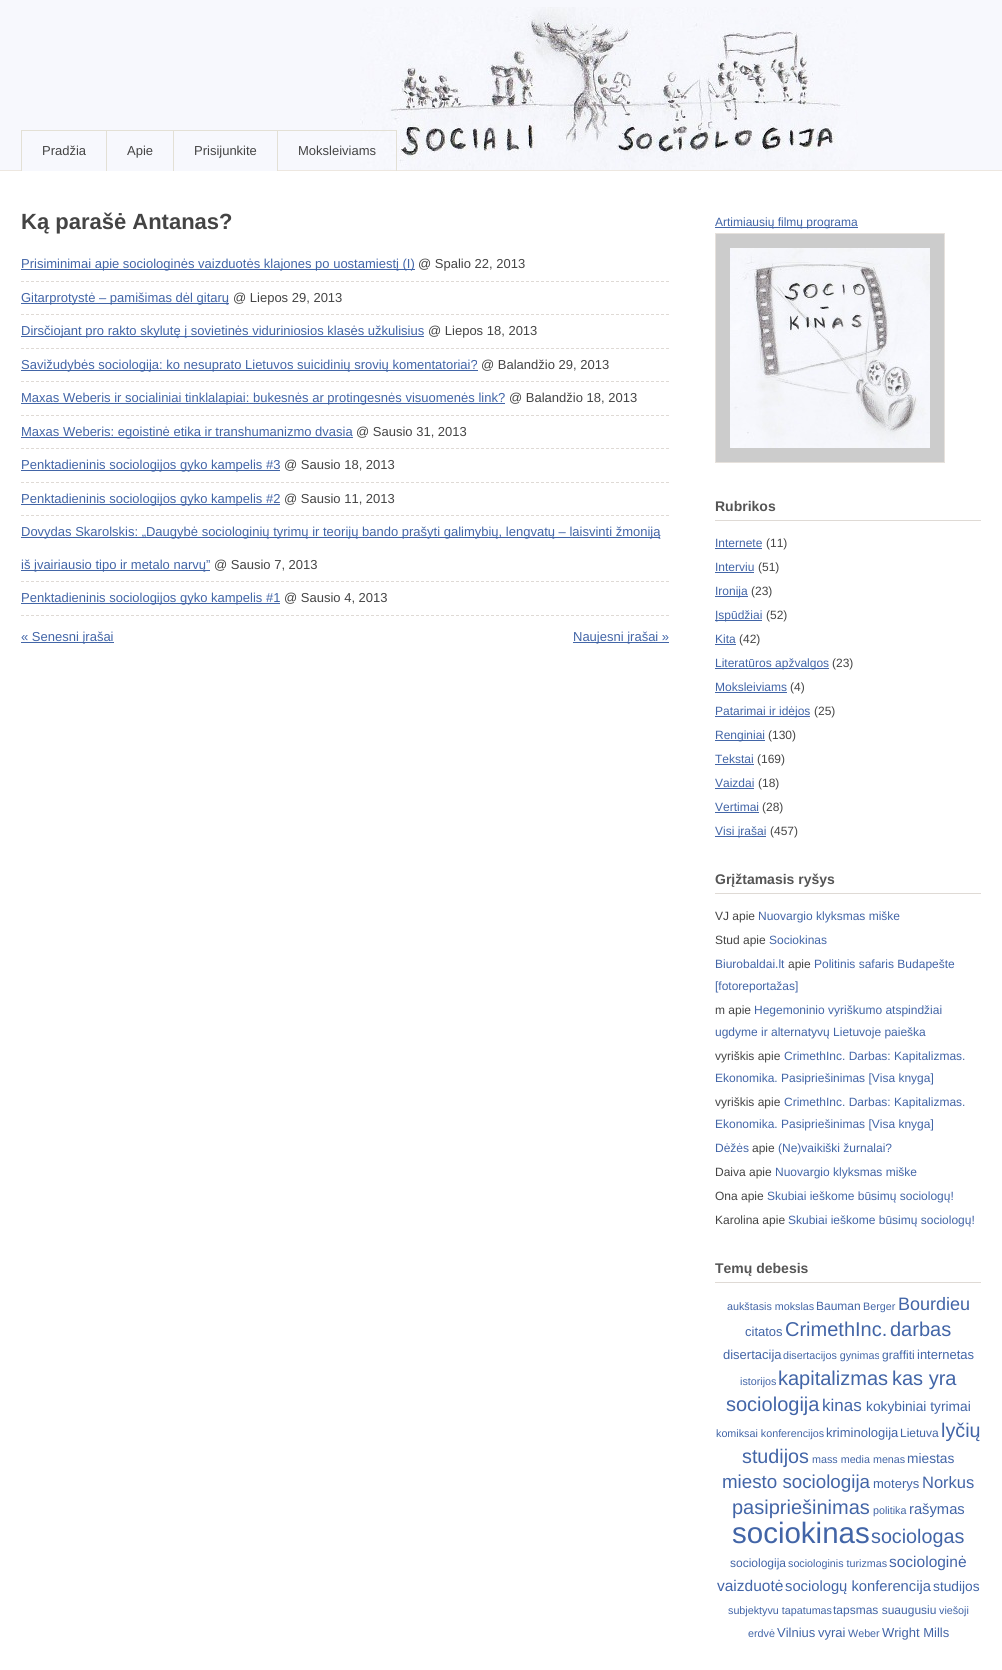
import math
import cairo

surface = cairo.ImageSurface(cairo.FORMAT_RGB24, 1002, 1670)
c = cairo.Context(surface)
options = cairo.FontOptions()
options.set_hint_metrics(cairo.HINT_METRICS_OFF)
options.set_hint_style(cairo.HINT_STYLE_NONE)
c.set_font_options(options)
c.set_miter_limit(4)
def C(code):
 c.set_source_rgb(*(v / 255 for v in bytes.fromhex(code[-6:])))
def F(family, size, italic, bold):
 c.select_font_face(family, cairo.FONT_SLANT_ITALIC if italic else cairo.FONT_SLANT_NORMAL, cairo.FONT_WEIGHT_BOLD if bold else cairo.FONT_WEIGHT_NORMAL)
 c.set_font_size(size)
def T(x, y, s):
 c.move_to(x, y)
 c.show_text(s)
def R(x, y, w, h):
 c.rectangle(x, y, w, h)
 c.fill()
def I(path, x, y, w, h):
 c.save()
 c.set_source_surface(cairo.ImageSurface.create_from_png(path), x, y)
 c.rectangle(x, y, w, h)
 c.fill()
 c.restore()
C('ffffff')
c.paint()
C('f7f8fd')
R(0,0,1002,170)
I('1.png',360,7,498,163)
C('ede7e0')
R(0,170,1002,1)
C('e3e0d5')
R(21,130,1,41)
C('f7f8fd')
R(22,170,84,1)
C('e3e0d5')
R(22,130,375,1)
R(106,130,1,41)
F('Liberation Sans',13,0,0)
C('444444')
T(42,155,'Pradžia')
C('f7f8fd')
R(107,170,66,1)
C('e3e0d5')
R(173,130,1,41)
C('444444')
T(127,155,'Apie')
C('f7f8fd')
R(174,170,103,1)
C('e3e0d5')
R(277,130,1,41)
C('444444')
T(194,155,'Prisijunkite')
C('e3e0d5')
R(396,130,1,41)
C('444444')
T(298,155,'Moksleiviams')
F('Liberation Sans',22,0,1)
T(21,229,'Ką parašė Antanas?')
c.new_path()
c.move_to(21,281.5)
c.line_to(669,281.5)
C('dfdad5')
c.set_line_width(1)
c.set_dash([3,2])
c.stroke()
C('4265a7')
R(21,269,394,1)
F('Liberation Sans',13,0,0)
T(21,268,'Prisiminimai apie sociologinės vaizduotės klajones po uostamiestį (I)')
C('444444')
T(418,268,'@ Spalio 22, 2013')
c.new_path()
c.move_to(21,314.5)
c.line_to(669,314.5)
C('dfdad5')
c.stroke()
C('4265a7')
R(21,303,208,1)
T(21,302,'Gitarprotystė – pamišimas dėl gitarų')
C('444444')
T(233,302,'@ Liepos 29, 2013')
c.new_path()
c.move_to(21,348.5)
c.line_to(669,348.5)
C('dfdad5')
c.stroke()
C('4265a7')
R(21,336,403,1)
T(21,335,'Dirsčiojant pro rakto skylutę į sovietinės viduriniosios klasės užkulisius')
C('444444')
T(428,335,'@ Liepos 18, 2013')
c.new_path()
c.move_to(21,381.5)
c.line_to(669,381.5)
C('dfdad5')
c.stroke()
C('4265a7')
R(21,370,457,1)
T(21,369,'Savižudybės sociologija: ko nesuprato Lietuvos suicidinių srovių komentatoriai?')
C('444444')
T(481,369,'@ Balandžio 29, 2013')
c.new_path()
c.move_to(21,415.5)
c.line_to(669,415.5)
C('dfdad5')
c.stroke()
C('4265a7')
R(21,403,484,1)
T(21,402,'Maxas Weberis ir socialiniai tinklalapiai: bukesnės ar protingesnės visuomenės link?')
C('444444')
T(509,402,'@ Balandžio 18, 2013')
c.new_path()
c.move_to(21,448.5)
c.line_to(669,448.5)
C('dfdad5')
c.stroke()
C('4265a7')
R(21,437,332,1)
T(21,436,'Maxas Weberis: egoistinė etika ir transhumanizmo dvasia')
C('444444')
T(356,436,'@ Sausio 31, 2013')
c.new_path()
c.move_to(21,482.5)
c.line_to(669,482.5)
C('dfdad5')
c.stroke()
C('4265a7')
R(21,470,259,1)
T(21,469,'Penktadieninis sociologijos gyko kampelis #3')
C('444444')
T(284,469,'@ Sausio 18, 2013')
c.new_path()
c.move_to(21,515.5)
c.line_to(669,515.5)
C('dfdad5')
c.stroke()
C('4265a7')
R(21,504,259,1)
T(21,503,'Penktadieninis sociologijos gyko kampelis #2')
C('444444')
T(284,503,'@ Sausio 11, 2013')
c.new_path()
c.move_to(21,581.5)
c.line_to(669,581.5)
C('dfdad5')
c.stroke()
C('4265a7')
R(21,537,639,1)
T(21,536,'Dovydas Skarolskis: „Daugybė sociologinių tyrimų ir teorijų bando prašyti galimybių, lengvatų – laisvinti žmoniją')
R(21,570,189,1)
T(21,569,'iš įvairiausio tipo ir metalo narvų”')
C('444444')
T(214,569,'@ Sausio 7, 2013')
c.new_path()
c.move_to(21,615.5)
c.line_to(669,615.5)
C('dfdad5')
c.stroke()
C('4265a7')
R(21,603,259,1)
T(21,602,'Penktadieninis sociologijos gyko kampelis #1')
C('444444')
T(284,602,'@ Sausio 4, 2013')
C('4265a7')
R(21,642,93,1)
T(21,641,'« Senesni įrašai')
R(573,642,96,1)
T(573,641,'Naujesni įrašai »')
R(715,227,143,1)
F('Liberation Sans',12,0,0)
T(715,226,'Artimiausių filmų programa')
C('cccccc')
c.rectangle(715.5,233.5,229,229)
c.fill_preserve()
C('e6e1dc')
c.set_dash([])
c.stroke()
I('2.png',730,248,200,200)
C('dfdad5')
R(715,520,266,1)
F('Liberation Sans',14,0,1)
C('555555')
T(715,511,'Rubrikos')
F('Liberation Sans',12,0,0)
C('4265a7')
T(715,547,'Internete')
R(715,548,47,1)
C('444444')
T(766,547,'(11)')
C('4265a7')
T(715,571,'Interviu')
R(715,572,39,1)
C('444444')
T(758,571,'(51)')
C('4265a7')
R(715,596,33,1)
T(715,595,'Ironija')
C('444444')
T(751,595,'(23)')
C('4265a7')
R(715,620,47,1)
T(715,619,'Įspūdžiai')
C('444444')
T(766,619,'(52)')
C('4265a7')
T(715,643,'Kita')
R(715,644,21,1)
C('444444')
T(739,643,'(42)')
C('4265a7')
R(715,668,114,1)
T(715,667,'Literatūros apžvalgos')
C('444444')
T(832,667,'(23)')
C('4265a7')
T(715,691,'Moksleiviams')
R(715,692,72,1)
C('444444')
T(790,691,'(4)')
C('4265a7')
R(715,716,95,1)
T(715,715,'Patarimai ir idėjos')
C('444444')
T(814,715,'(25)')
C('4265a7')
R(715,740,50,1)
T(715,739,'Renginiai')
C('444444')
T(768,739,'(130)')
C('4265a7')
T(715,763,'Tekstai')
R(715,764,39,1)
C('444444')
T(757,763,'(169)')
C('4265a7')
T(715,787,'Vaizdai')
R(715,788,39,1)
C('444444')
T(758,787,'(18)')
C('4265a7')
T(715,811,'Vertimai')
R(715,812,44,1)
C('444444')
T(762,811,'(28)')
C('4265a7')
R(715,836,51,1)
T(715,835,'Visi įrašai')
C('444444')
T(770,835,'(457)')
C('dfdad5')
R(715,893,266,1)
F('Liberation Sans',14,0,1)
C('555555')
T(715,884,'Grįžtamasis ryšys')
F('Liberation Sans',12,0,0)
C('444444')
T(715,920,'VJ apie')
C('4265a7')
T(758,920,'Nuovargio klyksmas miške')
C('444444')
T(715,944,'Stud apie')
C('4265a7')
T(769,944,'Sociokinas')
T(715,968,'Biurobaldai.lt')
C('444444')
T(788,968,'apie')
C('4265a7')
T(814,968,'Politinis safaris Budapešte')
T(715,990,'[fotoreportažas]')
C('444444')
T(715,1014,'m apie')
C('4265a7')
T(754,1014,'Hegemoninio vyriškumo atspindžiai')
T(715,1036,'ugdyme ir alternatyvų Lietuvoje paieška')
C('444444')
T(715,1060,'vyriškis apie')
C('4265a7')
T(784,1060,'CrimethInc. Darbas: Kapitalizmas.')
T(715,1082,'Ekonomika. Pasipriešinimas [Visa knyga]')
C('444444')
T(715,1106,'vyriškis apie')
C('4265a7')
T(784,1106,'CrimethInc. Darbas: Kapitalizmas.')
T(715,1128,'Ekonomika. Pasipriešinimas [Visa knyga]')
T(715,1152,'Dėžės')
C('444444')
T(752,1152,'apie')
C('4265a7')
T(778,1152,'(Ne)vaikiški žurnalai?')
C('444444')
T(715,1176,'Daiva apie')
C('4265a7')
T(775,1176,'Nuovargio klyksmas miške')
C('444444')
T(715,1200,'Ona apie')
C('4265a7')
T(767,1200,'Skubiai ieškome būsimų sociologų!')
C('444444')
T(715,1224,'Karolina apie')
C('4265a7')
T(788,1224,'Skubiai ieškome būsimų sociologų!')
C('dfdad5')
R(715,1282,266,1)
F('Liberation Sans',14,0,1)
C('555555')
T(715,1273,'Temų debesis')
F('Liberation Sans',10.75,0,0)
C('4265a7')
T(727,1310,'aukštasis mokslas')
F('Liberation Sans',12,0,0)
T(816,1310,'Bauman')
F('Liberation Sans',10.75,0,0)
T(863,1310,'Berger')
F('Liberation Sans',18,0,0)
T(898,1310,'Bourdieu')
F('Liberation Sans',13,0,0)
T(745,1336,'citatos')
F('Liberation Sans',20,0,0)
T(785,1336,'CrimethInc.')
T(890,1336,'darbas')
F('Liberation Sans',13,0,0)
T(723,1359,'disertacija')
F('Liberation Sans',10.75,0,0)
T(783,1359,'disertacijos gynimas')
F('Liberation Sans',12,0,0)
T(882,1359,'graffiti')
F('Liberation Sans',13,0,0)
T(917,1359,'internetas')
F('Liberation Sans',10.75,0,0)
T(740,1385,'istorijos')
F('Liberation Sans',20,0,0)
T(778,1385,'kapitalizmas')
T(892,1385,'kas yra')
T(726,1411,'sociologija')
F('Liberation Sans',17,0,0)
T(822,1411,'kinas')
F('Liberation Sans',13.75,0,0)
T(866,1411,'kokybiniai tyrimai')
F('Liberation Sans',10.75,0,0)
T(716,1437,'komiksai konferencijos')
F('Liberation Sans',13,0,0)
T(826,1437,'kriminologija')
F('Liberation Sans',12,0,0)
T(900,1437,'Lietuva')
F('Liberation Sans',19.75,0,0)
T(941,1437,'lyčių')
T(742,1463,'studijos')
F('Liberation Sans',10.75,0,0)
T(812,1463,'mass media menas')
F('Liberation Sans',13.75,0,0)
T(907,1463,'miestas')
F('Liberation Sans',18.75,0,0)
T(722,1488,'miesto sociologija')
F('Liberation Sans',13,0,0)
T(873,1488,'moterys')
F('Liberation Sans',16.5,0,0)
T(922,1488,'Norkus')
F('Liberation Sans',20,0,0)
T(732,1514,'pasipriešinimas')
F('Liberation Sans',10.75,0,0)
T(873,1514,'politika')
F('Liberation Sans',14.75,0,0)
T(909,1514,'rašymas')
F('Liberation Sans',29.5,0,0)
T(732,1543,'sociokinas')
F('Liberation Sans',19.75,0,0)
T(871,1543,'sociologas')
F('Liberation Sans',12,0,0)
T(730,1567,'sociologija')
F('Liberation Sans',10.75,0,0)
T(788,1567,'sociologinis turizmas')
F('Liberation Sans',15.5,0,0)
T(889,1567,'sociologinė')
T(717,1591,'vaizduotė')
F('Liberation Sans',14.75,0,0)
T(785,1591,'sociologų konferencija')
F('Liberation Sans',13.75,0,0)
T(933,1591,'studijos')
F('Liberation Sans',10.75,0,0)
T(728,1614,'subjektyvu tapatumas')
F('Liberation Sans',12,0,0)
T(833,1614,'tapsmas suaugusiu')
F('Liberation Sans',10.75,0,0)
T(939,1614,'viešoji')
T(748,1637,'erdvė')
F('Liberation Sans',13,0,0)
T(777,1637,'Vilnius')
T(818,1637,'vyrai')
F('Liberation Sans',10.75,0,0)
T(848,1637,'Weber')
F('Liberation Sans',13,0,0)
T(882,1637,'Wright Mills')
surface.write_to_png('o.png')
